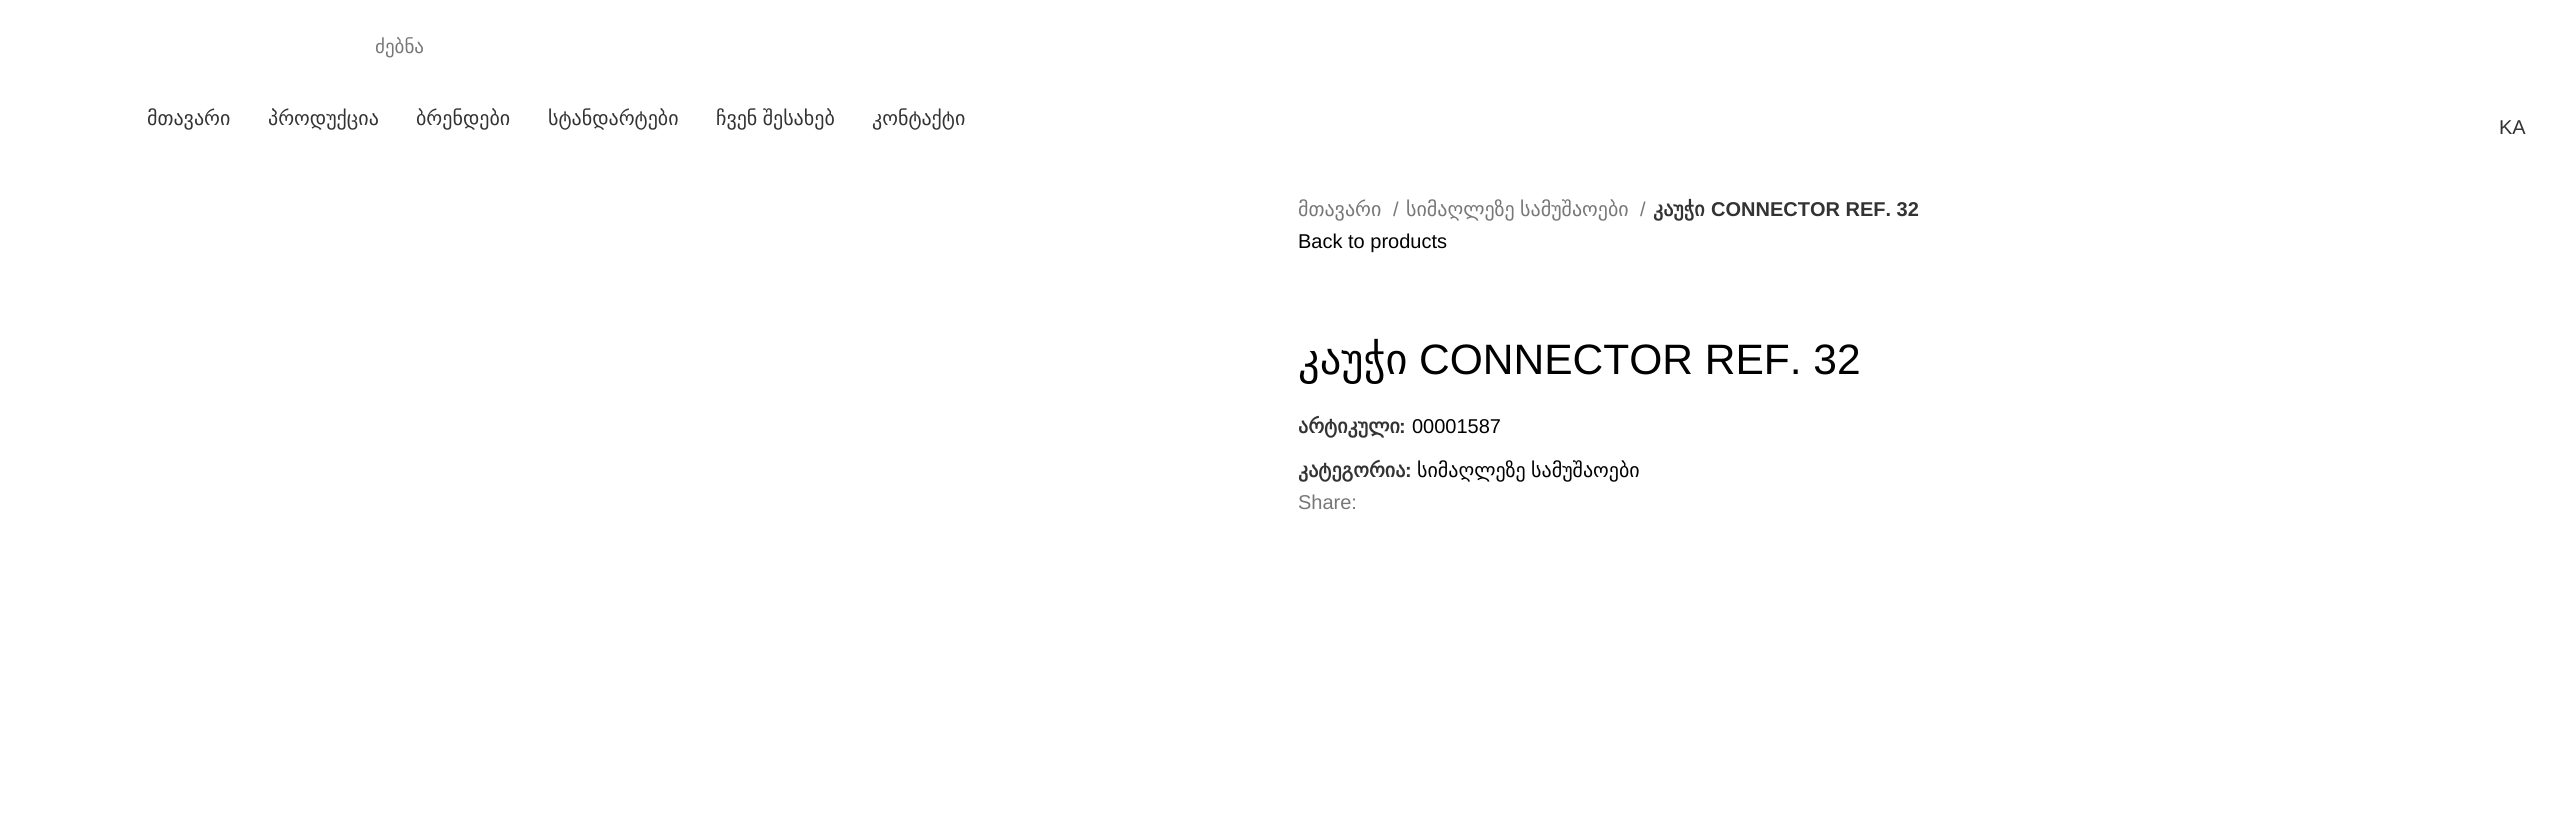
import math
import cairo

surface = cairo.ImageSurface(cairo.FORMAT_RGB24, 2557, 836)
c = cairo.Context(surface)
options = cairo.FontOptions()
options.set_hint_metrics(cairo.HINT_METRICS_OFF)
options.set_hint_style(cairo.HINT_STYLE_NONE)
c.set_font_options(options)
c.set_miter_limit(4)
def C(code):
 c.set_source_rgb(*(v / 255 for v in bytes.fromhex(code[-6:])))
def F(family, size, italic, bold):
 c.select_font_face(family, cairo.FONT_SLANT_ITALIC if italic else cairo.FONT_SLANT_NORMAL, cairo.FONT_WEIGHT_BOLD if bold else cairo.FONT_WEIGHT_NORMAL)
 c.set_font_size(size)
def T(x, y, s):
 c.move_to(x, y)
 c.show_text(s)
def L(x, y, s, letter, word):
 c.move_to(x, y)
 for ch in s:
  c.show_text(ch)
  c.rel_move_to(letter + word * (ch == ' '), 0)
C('ffffff')
c.paint()
F('DejaVu Sans',19,0,0)
C('777777')
T(375,53,'ძებნა')
F('DejaVu Sans',20,0,0)
C('333333')
T(147,125,'მთავარი')
T(268,125,'პროდუქცია')
T(416,125,'ბრენდები')
T(548,125,'სტანდარტები')
L(716,125,'ჩვენ შესახებ',0,-1)
T(872,125,'კონტაქტი')
F('Liberation Sans',20,0,0)
T(2499,134,'KA')
F('DejaVu Sans',20,0,0)
C('777777')
T(1298,216,'მთავარი')
F('Liberation Sans',20,0,0)
T(1393,216,'/')
F('DejaVu Sans',20,0,0)
L(1406,216,'სიმაღლეზე სამუშაოები',0,-1)
F('Liberation Sans',20,0,0)
T(1640,216,'/')
F('DejaVu Sans',20,0,1)
C('333333')
T(1653,216,'კაუჭი')
F('Liberation Sans',20,0,1)
T(1711,216,'CONNECTOR REF. 32')
F('Liberation Sans',20,0,0)
C('000000')
T(1298,248,'Back to products')
F('DejaVu Sans',42.5,0,0)
T(1298,374,'კაუჭი')
F('Liberation Sans',42.5,0,0)
T(1419,374,'CONNECTOR REF. 32')
F('DejaVu Sans',20,0,1)
C('333333')
T(1298,433,'არტიკული')
F('Liberation Sans',20,0,1)
T(1399,433,':')
F('Liberation Sans',20,0,0)
C('000000')
T(1412,433,'00001587')
F('DejaVu Sans',20,0,1)
C('333333')
T(1298,477,'კატეგორია')
F('Liberation Sans',20,0,1)
T(1405,477,':')
F('DejaVu Sans',20,0,0)
C('000000')
L(1417,477,'სიმაღლეზე სამუშაოები',0,-1)
F('Liberation Sans',20,0,0)
C('777777')
T(1298,509,'Share:')
surface.write_to_png('o.png')
